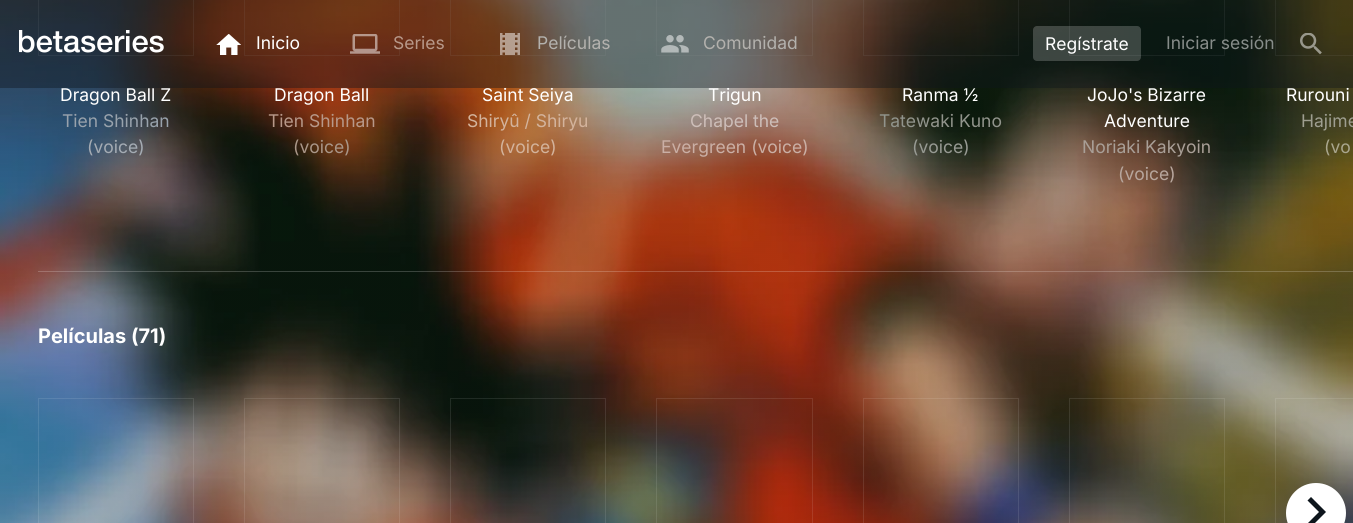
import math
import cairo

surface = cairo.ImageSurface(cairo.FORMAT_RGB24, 1353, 523)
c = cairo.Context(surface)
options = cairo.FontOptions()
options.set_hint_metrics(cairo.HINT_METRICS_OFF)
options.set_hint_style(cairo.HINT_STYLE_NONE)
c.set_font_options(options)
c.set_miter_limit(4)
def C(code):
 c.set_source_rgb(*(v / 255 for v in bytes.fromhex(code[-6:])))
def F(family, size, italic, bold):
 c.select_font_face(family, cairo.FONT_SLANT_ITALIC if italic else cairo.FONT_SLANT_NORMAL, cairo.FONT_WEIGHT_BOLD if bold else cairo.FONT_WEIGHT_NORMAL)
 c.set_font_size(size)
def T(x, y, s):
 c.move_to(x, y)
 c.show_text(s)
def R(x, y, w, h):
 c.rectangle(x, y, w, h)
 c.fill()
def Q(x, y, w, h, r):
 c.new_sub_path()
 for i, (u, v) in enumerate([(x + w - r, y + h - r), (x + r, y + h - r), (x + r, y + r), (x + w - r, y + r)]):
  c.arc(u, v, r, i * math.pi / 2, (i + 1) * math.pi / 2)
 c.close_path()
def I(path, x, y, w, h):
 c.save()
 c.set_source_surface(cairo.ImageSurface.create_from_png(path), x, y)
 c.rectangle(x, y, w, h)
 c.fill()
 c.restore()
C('ffffff')
c.paint()
I('1.png',0,0,1353,523)
c.rectangle(38.5,-.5,155,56)
c.set_source_rgba(1,1,1,0.1)
c.set_line_width(1)
c.stroke()
c.rectangle(244.5,-.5,155,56)
c.stroke()
c.rectangle(450.5,-.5,155,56)
c.stroke()
F('Inter',17.5,0,0)
C('ffffff')
T(482,101,'Saint Seiya')
c.rectangle(656.5,-.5,156,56)
c.set_source_rgba(1,1,1,0.1)
c.stroke()
C('ffffff')
T(708,101,'Trigun')
c.rectangle(863.5,-.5,155,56)
c.set_source_rgba(1,1,1,0.1)
c.stroke()
c.rectangle(1069.5,-.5,155,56)
c.stroke()
C('ffffff')
T(1087,101,'JoJo\'s Bizarre')
c.rectangle(1275.5,-.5,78,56)
c.set_source_rgba(1,1,1,0.1)
c.stroke()
C('ffffff')
T(1286,101,'Rurouni')
c.set_source_rgba(0.051,0.082,0.11,0.4)
R(0,0,1353,88)
I('2.png',19,30,145,23)
I('3.png',216,34,25,21)
C('ffffff')
T(256,49,'Inicio')
I('4.png',350,34,30,20)
C('b79889')
T(393,49,'Series')
I('5.png',500,33,20,22)
C('b3b1ad')
T(537,49,'Películas')
I('6.png',661,35,28,18)
T(703,49,'Comunidad')
c.set_source_rgba(1,1,1,0.2)
Q(1033,26,108,35,4)
c.fill()
C('ffffff')
T(1045,50,'Regístrate')
C('868c89')
T(1166,49,'Iniciar sesión')
I('7.png',1300,33,22,22)
C('ffffff')
T(60,101,'Dragon Ball Z')
C('98a2ac')
T(62,127,'Tien Shinhan')
C('a4abb3')
T(87,153,'(voice)')
C('ffffff')
T(274,101,'Dragon Ball')
C('b79889')
T(268,127,'Tien Shinhan')
C('a99688')
T(293,153,'(voice)')
C('d3b39c')
T(467,127,'Shiryû / Shiryu')
T(499,153,'(voice)')
C('cdbeb9')
T(690,127,'Chapel the')
C('caafa5')
T(661,153,'Evergreen (voice)')
C('ffffff')
T(902,101,'Ranma ½')
C('91948c')
T(879,127,'Tatewaki Kuno')
C('979a93')
T(912,153,'(voice)')
C('ffffff')
T(1104,127,'Adventure')
C('a99f97')
T(1082,153,'Noriaki Kakyoin')
C('b7a69d')
T(1118,180,'(voice)')
C('9e9e90')
T(1301,127,'Hajime')
C('a9a68e')
T(1324,153,'(vo')
c.set_source_rgba(1,1,1,0.2)
R(38,271,1315,1)
F('Inter',20,0,1)
C('ffffff')
T(38,343,'Películas (71)')
c.rectangle(38.5,398.5,155,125)
c.set_source_rgba(1,1,1,0.1)
c.stroke()
c.rectangle(244.5,398.5,155,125)
c.stroke()
c.rectangle(450.5,398.5,155,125)
c.stroke()
c.rectangle(656.5,398.5,156,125)
c.stroke()
c.rectangle(863.5,398.5,155,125)
c.stroke()
c.rectangle(1069.5,398.5,155,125)
c.stroke()
c.rectangle(1275.5,398.5,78,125)
c.stroke()
C('ffffff')
c.arc(1316,513,30,0,2 * math.pi)
c.fill()
C('0d151c')
c.new_path()
c.move_to(1307.5,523.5)
c.line_to(1319,512)
c.line_to(1307.5,500.5)
c.line_to(1311,497)
c.line_to(1326,512)
c.line_to(1311,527)
c.close_path()
c.fill()
surface.write_to_png('o.png')
